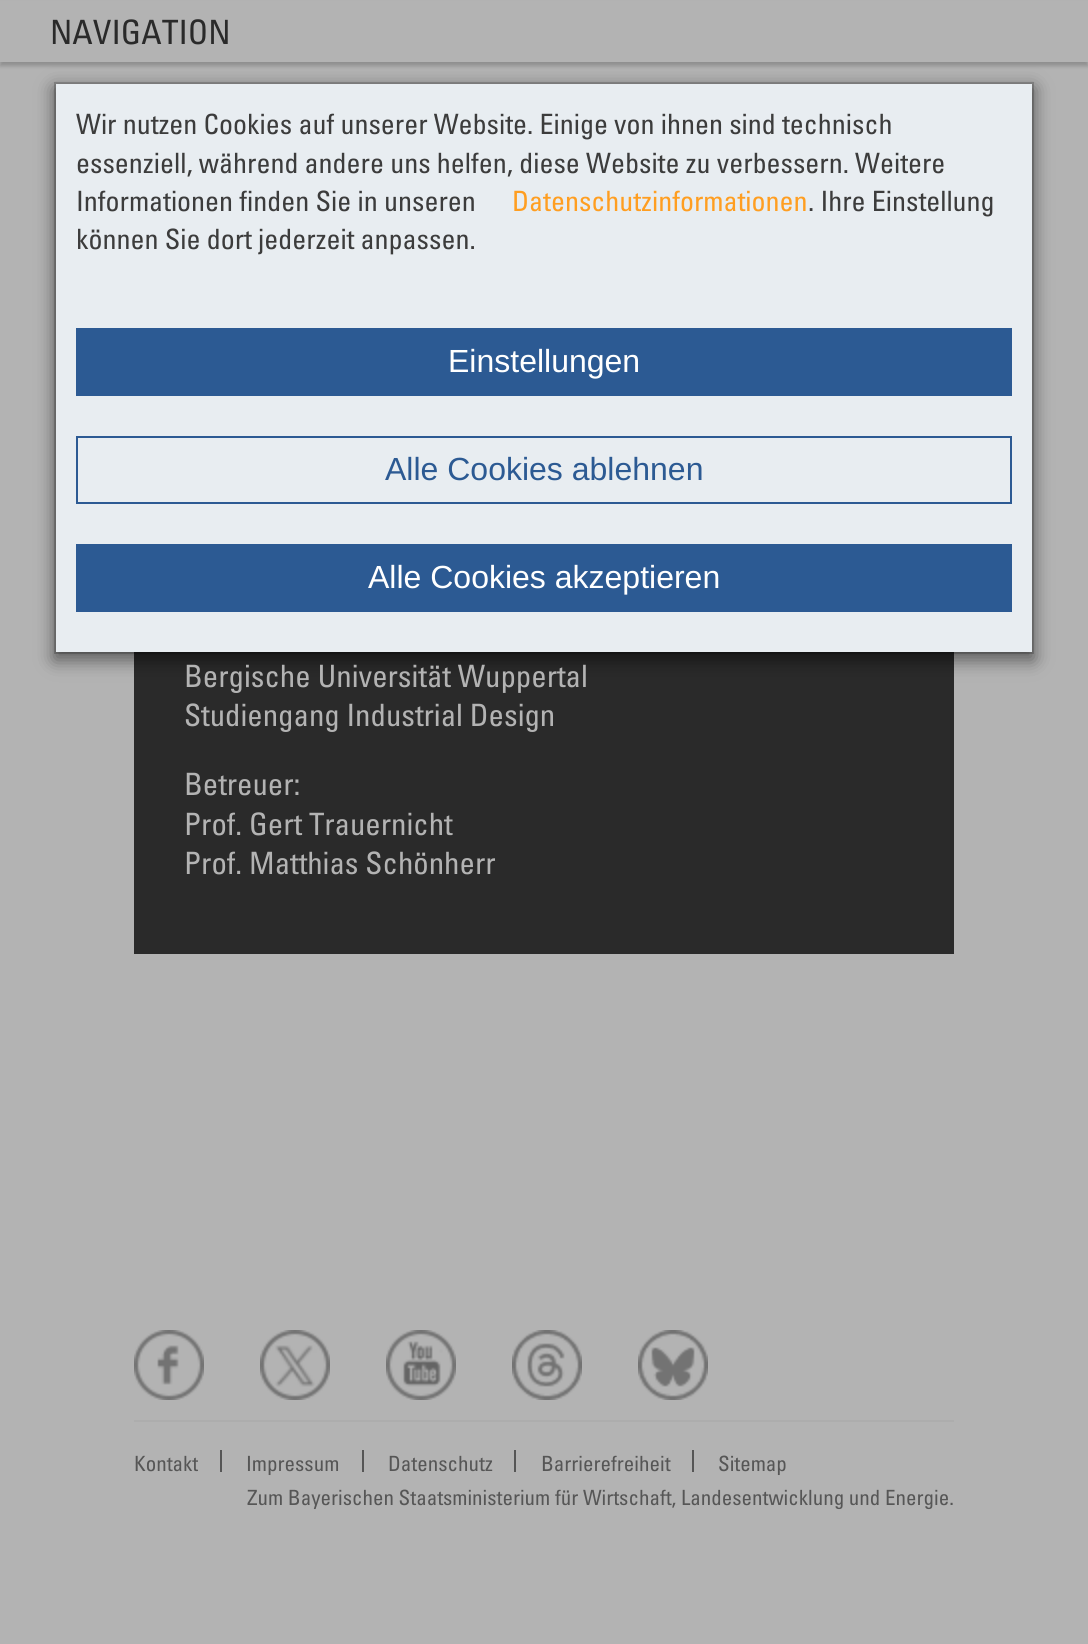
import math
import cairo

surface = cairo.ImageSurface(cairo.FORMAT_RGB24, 1088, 1644)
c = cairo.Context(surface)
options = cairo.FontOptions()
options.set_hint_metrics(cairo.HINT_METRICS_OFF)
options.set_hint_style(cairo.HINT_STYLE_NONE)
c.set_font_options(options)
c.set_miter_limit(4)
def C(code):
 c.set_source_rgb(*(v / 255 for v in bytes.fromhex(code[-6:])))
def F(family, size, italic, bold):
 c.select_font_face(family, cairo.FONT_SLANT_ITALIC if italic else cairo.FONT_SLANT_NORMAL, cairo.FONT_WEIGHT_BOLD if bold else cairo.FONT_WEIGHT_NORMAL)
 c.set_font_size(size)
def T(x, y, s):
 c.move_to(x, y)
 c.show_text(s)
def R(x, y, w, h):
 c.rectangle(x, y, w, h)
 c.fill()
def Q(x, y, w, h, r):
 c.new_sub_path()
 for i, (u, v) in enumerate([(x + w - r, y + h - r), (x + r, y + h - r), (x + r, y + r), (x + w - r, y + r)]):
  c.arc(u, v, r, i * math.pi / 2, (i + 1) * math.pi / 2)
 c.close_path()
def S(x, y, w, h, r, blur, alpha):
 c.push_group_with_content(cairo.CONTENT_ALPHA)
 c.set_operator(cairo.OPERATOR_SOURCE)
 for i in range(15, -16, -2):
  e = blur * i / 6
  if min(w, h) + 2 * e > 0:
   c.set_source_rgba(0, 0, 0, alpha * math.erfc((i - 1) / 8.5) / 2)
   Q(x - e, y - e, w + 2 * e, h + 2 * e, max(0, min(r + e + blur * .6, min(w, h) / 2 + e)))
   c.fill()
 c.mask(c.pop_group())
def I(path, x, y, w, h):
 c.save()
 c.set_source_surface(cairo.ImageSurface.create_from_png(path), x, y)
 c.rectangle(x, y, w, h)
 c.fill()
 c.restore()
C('b3b3b3')
c.paint()
C('8f8f8f')
S(0,4,1088,62,0,2,1)
C('b3b3b3')
R(0,1,1088,61)
F('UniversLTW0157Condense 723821',33.5,0,0)
C('2a2a2a')
T(50,44,'NAVIGATION')
R(134,652,820,302)
C('000000')
S(54,88,980,572,0,9,.5)
C('e8edf1')
R(56,84,976,568)
c.rectangle(55,83,978,570)
c.set_source_rgba(0,0,0,0.2)
c.stroke()
F('UniversLTW0157Condense 723821',28,0,0)
C('3c3c3c')
T(76,134,'Wir nutzen Cookies auf unserer Website. Einige von ihnen sind technisch')
T(76,173,'essenziell, während andere uns helfen, diese Website zu verbessern. Weitere')
T(76,211,'Informationen finden Sie in unseren')
C('ff9e21')
T(512,211,'Datenschutzinformationen')
C('3c3c3c')
T(808,211,'. Ihre Einstellung')
T(76,249,'können Sie dort jederzeit anpassen.')
C('2c5a93')
R(76,328,936,68)
F('Liberation Sans',32,0,0)
C('ffffff')
T(448,372,'Einstellungen')
c.rectangle(77,437,934,66)
C('2c5a93')
c.stroke()
T(385,480,'Alle Cookies ablehnen')
R(76,544,936,68)
C('ffffff')
T(368,588,'Alle Cookies akzeptieren')
F('UniversLTW0157Condense 723821',30.8,0,0)
C('b3b3b3')
T(184,687,'Bergische Universität Wuppertal')
T(184,726,'Studiengang Industrial Design')
T(184,795,'Betreuer:')
T(184,835,'Prof. Gert Trauernicht')
T(184,874,'Prof. Matthias Schönherr')
I('1.png',134,1330,70,70)
I('2.png',260,1330,70,70)
I('3.png',386,1330,70,70)
I('4.png',512,1330,70,70)
I('5.png',638,1330,70,70)
C('adadad')
R(134,1420,820,2)
C('565656')
R(220,1450,2,22)
F('UniversLTW0157Condense 723821',21,0,0)
T(134,1471,'Kontakt')
R(362,1450,2,22)
T(246,1471,'Impressum')
R(514,1450,2,22)
T(388,1471,'Datenschutz')
R(692,1450,2,22)
T(541,1471,'Barrierefreiheit')
T(718,1471,'Sitemap')
T(247,1505,'Zum Bayerischen Staatsministerium für Wirtschaft, Landesentwicklung und Energie.')
surface.write_to_png('o.png')
